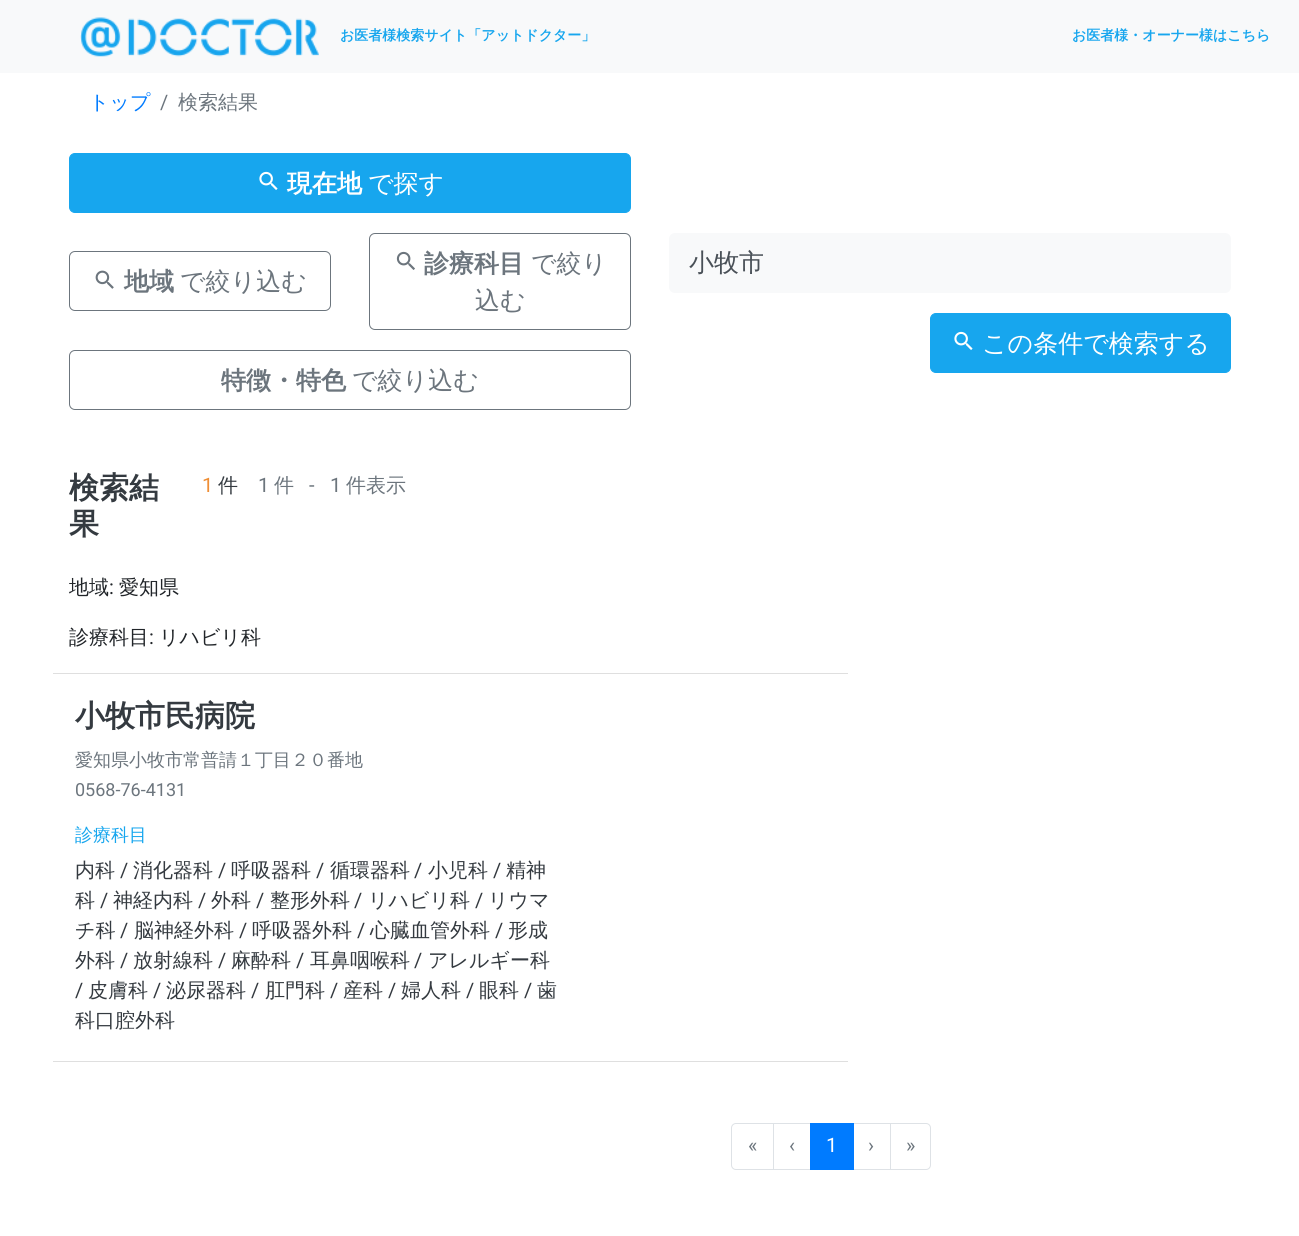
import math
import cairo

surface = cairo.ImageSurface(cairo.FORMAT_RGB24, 1299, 1236)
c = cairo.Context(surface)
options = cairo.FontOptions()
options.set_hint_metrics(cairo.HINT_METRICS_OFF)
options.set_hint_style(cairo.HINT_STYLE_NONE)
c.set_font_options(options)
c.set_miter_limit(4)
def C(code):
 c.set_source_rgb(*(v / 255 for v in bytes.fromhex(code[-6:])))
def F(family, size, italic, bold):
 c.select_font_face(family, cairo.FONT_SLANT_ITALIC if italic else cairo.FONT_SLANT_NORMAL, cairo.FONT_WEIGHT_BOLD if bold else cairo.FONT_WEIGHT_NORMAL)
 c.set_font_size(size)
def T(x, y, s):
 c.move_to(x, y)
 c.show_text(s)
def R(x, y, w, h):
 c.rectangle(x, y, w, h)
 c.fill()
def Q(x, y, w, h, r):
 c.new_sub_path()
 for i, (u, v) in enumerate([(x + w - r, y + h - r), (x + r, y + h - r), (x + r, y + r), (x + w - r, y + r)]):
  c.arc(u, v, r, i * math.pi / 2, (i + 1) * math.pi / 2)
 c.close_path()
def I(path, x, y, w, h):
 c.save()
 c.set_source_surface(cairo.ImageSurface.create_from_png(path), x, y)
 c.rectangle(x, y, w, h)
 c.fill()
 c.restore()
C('ffffff')
c.paint()
C('f8f9fa')
R(0,0,1299,73)
I('1.png',80,17,239,40)
F('WenQuanYi Zen Hei',14,0,1)
C('17a6ee')
T(340,40,'お医者様検索サイト「アットドクター」')
T(1072,40,'お医者様・オーナー様はこちら')
F('WenQuanYi Zen Hei Medium',20,0,0)
C('007bff')
T(89,109,'トップ')
F('Roboto',20,0,0)
C('6c757d')
T(160,109,'/')
F('WenQuanYi Zen Hei Medium',20,0,0)
T(178,109,'検索結果')
C('17a6ee')
Q(69.5,153.5,561,59,5.5)
c.fill_preserve()
c.set_line_width(1)
c.stroke()
I('2.png',259,171,19,19)
F('WenQuanYi Zen Hei',25,0,1)
C('ffffff')
T(287,192,'現在地')
F('WenQuanYi Zen Hei Medium',25,0,0)
T(368,192,'で探す')
Q(69.5,251.5,261,59,5.5)
C('6c757d')
c.stroke()
I('3.png',95,270,19,19)
F('WenQuanYi Zen Hei',25,0,1)
T(124,290,'地域')
F('WenQuanYi Zen Hei Medium',25,0,0)
T(180,290,'で絞り込む')
Q(369.5,233.5,261,96,5.5)
c.stroke()
I('4.png',396,251,19,19)
F('WenQuanYi Zen Hei',25,0,1)
T(424,272,'診療科目')
F('WenQuanYi Zen Hei Medium',25,0,0)
T(531,272,'で絞り')
T(475,309,'込む')
Q(69.5,350.5,561,59,5.5)
c.stroke()
F('WenQuanYi Zen Hei',25,0,1)
T(221,389,'特徴・特色')
F('WenQuanYi Zen Hei Medium',25,0,0)
T(352,389,'で絞り込む')
C('f8f9fa')
Q(669,233,562,60,6)
c.fill()
C('495057')
T(689,271,'小牧市')
C('17a6ee')
Q(930.5,313.5,300,59,5.5)
c.fill_preserve()
c.stroke()
I('2.png',954,331,19,19)
C('ffffff')
T(982,352,'この条件で検索する')
F('WenQuanYi Zen Hei',30,0,1)
C('343a40')
T(69,498,'検索結')
T(69,534,'果')
F('Roboto',20,0,0)
C('ef8e35')
T(202,492,'1')
F('WenQuanYi Zen Hei Medium',20,0,0)
C('343a40')
T(218,492,'件')
F('Roboto',20,0,0)
C('6c757d')
T(258,492,'1')
F('WenQuanYi Zen Hei Medium',20,0,0)
T(274,492,'件')
F('Roboto',20,0,0)
T(309,492,'-')
T(330,492,'1')
F('WenQuanYi Zen Hei Medium',20,0,0)
T(346,492,'件表示')
C('212529')
T(69,594,'地域')
F('Roboto',20,0,0)
T(109,594,':')
F('WenQuanYi Zen Hei Medium',20,0,0)
T(119,594,'愛知県')
T(69,644,'診療科目')
F('Roboto',20,0,0)
T(149,644,':')
F('WenQuanYi Zen Hei Medium',20,0,0)
T(159,644,'リハビリ科')
C('dfdfdf')
R(53,673,795,1)
R(53,1061,795,1)
F('WenQuanYi Zen Hei',30,0,1)
C('343a40')
T(75,726,'小牧市民病院')
F('WenQuanYi Zen Hei Medium',18,0,0)
C('6c757d')
T(75,766,'愛知県小牧市常普請１丁目２０番地')
F('Roboto',18,0,0)
T(75,796,'0568-76-4131')
F('WenQuanYi Zen Hei Medium',18,0,0)
C('17a6ee')
T(75,841,'診療科目')
F('WenQuanYi Zen Hei Medium',20,0,0)
C('343a40')
T(75,877,'内科')
F('Roboto',20,0,0)
T(120,877,'/')
F('WenQuanYi Zen Hei Medium',20,0,0)
T(133,877,'消化器科')
F('Roboto',20,0,0)
T(218,877,'/')
F('WenQuanYi Zen Hei Medium',20,0,0)
T(231,877,'呼吸器科')
F('Roboto',20,0,0)
T(316,877,'/')
F('WenQuanYi Zen Hei Medium',20,0,0)
T(330,877,'循環器科')
F('Roboto',20,0,0)
T(414,877,'/')
F('WenQuanYi Zen Hei Medium',20,0,0)
T(428,877,'小児科')
F('Roboto',20,0,0)
T(493,877,'/')
F('WenQuanYi Zen Hei Medium',20,0,0)
T(506,877,'精神')
T(75,907,'科')
F('Roboto',20,0,0)
T(100,907,'/')
F('WenQuanYi Zen Hei Medium',20,0,0)
T(113,907,'神経内科')
F('Roboto',20,0,0)
T(198,907,'/')
F('WenQuanYi Zen Hei Medium',20,0,0)
T(211,907,'外科')
F('Roboto',20,0,0)
T(256,907,'/')
F('WenQuanYi Zen Hei Medium',20,0,0)
T(270,907,'整形外科')
F('Roboto',20,0,0)
T(354,907,'/')
F('WenQuanYi Zen Hei Medium',20,0,0)
T(368,907,'リハビリ科')
F('Roboto',20,0,0)
T(475,907,'/')
F('WenQuanYi Zen Hei Medium',20,0,0)
T(488,907,'リウマ')
T(75,937,'チ科')
F('Roboto',20,0,0)
T(120,937,'/')
F('WenQuanYi Zen Hei Medium',20,0,0)
T(134,937,'脳神経外科')
F('Roboto',20,0,0)
T(239,937,'/')
F('WenQuanYi Zen Hei Medium',20,0,0)
T(252,937,'呼吸器外科')
F('Roboto',20,0,0)
T(357,937,'/')
F('WenQuanYi Zen Hei Medium',20,0,0)
T(370,937,'心臓血管外科')
F('Roboto',20,0,0)
T(495,937,'/')
F('WenQuanYi Zen Hei Medium',20,0,0)
T(508,937,'形成')
T(75,967,'外科')
F('Roboto',20,0,0)
T(120,967,'/')
F('WenQuanYi Zen Hei Medium',20,0,0)
T(133,967,'放射線科')
F('Roboto',20,0,0)
T(218,967,'/')
F('WenQuanYi Zen Hei Medium',20,0,0)
T(231,967,'麻酔科')
F('Roboto',20,0,0)
T(296,967,'/')
F('WenQuanYi Zen Hei Medium',20,0,0)
T(310,967,'耳鼻咽喉科')
F('Roboto',20,0,0)
T(414,967,'/')
F('WenQuanYi Zen Hei Medium',20,0,0)
T(428,967,'アレルギー科')
F('Roboto',20,0,0)
T(75,997,'/')
F('WenQuanYi Zen Hei Medium',20,0,0)
T(88,997,'皮膚科')
F('Roboto',20,0,0)
T(153,997,'/')
F('WenQuanYi Zen Hei Medium',20,0,0)
T(166,997,'泌尿器科')
F('Roboto',20,0,0)
T(251,997,'/')
F('WenQuanYi Zen Hei Medium',20,0,0)
T(265,997,'肛門科')
F('Roboto',20,0,0)
T(330,997,'/')
F('WenQuanYi Zen Hei Medium',20,0,0)
T(343,997,'産科')
F('Roboto',20,0,0)
T(388,997,'/')
F('WenQuanYi Zen Hei Medium',20,0,0)
T(401,997,'婦人科')
F('Roboto',20,0,0)
T(466,997,'/')
F('WenQuanYi Zen Hei Medium',20,0,0)
T(479,997,'眼科')
F('Roboto',20,0,0)
T(524,997,'/')
F('WenQuanYi Zen Hei Medium',20,0,0)
T(537,997,'歯')
T(75,1027,'科口腔外科')
c.new_path()
c.move_to(736,1123.5)
c.line_to(773.5,1123.5)
c.line_to(773.5,1169.5)
c.line_to(736,1169.5)
c.curve_to(733.5,1169.5,731.5,1167.5,731.5,1165)
c.line_to(731.5,1128)
c.curve_to(731.5,1125.5,733.5,1123.5,736,1123.5)
c.close_path()
C('dee2e6')
c.stroke()
F('Roboto',20,0,0)
C('6c757d')
T(748,1152,'«')
c.rectangle(773.5,1123.5,37,46)
C('dee2e6')
c.stroke()
C('6c757d')
T(789,1152,'‹')
c.rectangle(853.5,1123.5,37,46)
C('dee2e6')
c.stroke()
C('007bff')
R(810,1123,44,47)
C('ffffff')
T(826,1152,'1')
C('6c757d')
T(868,1152,'›')
C('ffffff')
c.new_path()
c.move_to(890.5,1123.5)
c.line_to(926,1123.5)
c.curve_to(928.5,1123.5,930.5,1125.5,930.5,1128)
c.line_to(930.5,1165)
c.curve_to(930.5,1167.5,928.5,1169.5,926,1169.5)
c.line_to(890.5,1169.5)
c.close_path()
c.fill_preserve()
C('dee2e6')
c.stroke()
C('6c757d')
T(906,1152,'»')
surface.write_to_png('o.png')
